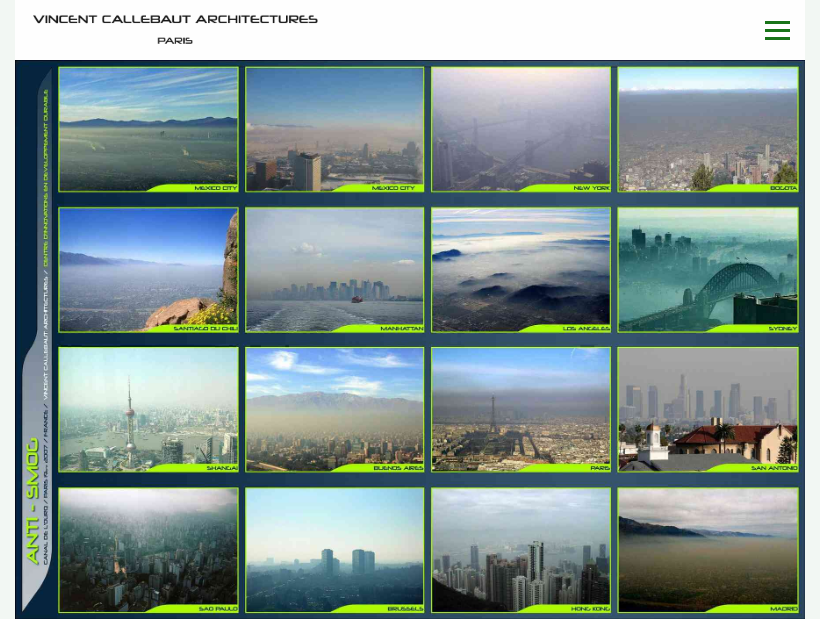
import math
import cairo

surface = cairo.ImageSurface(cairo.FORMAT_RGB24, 820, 619)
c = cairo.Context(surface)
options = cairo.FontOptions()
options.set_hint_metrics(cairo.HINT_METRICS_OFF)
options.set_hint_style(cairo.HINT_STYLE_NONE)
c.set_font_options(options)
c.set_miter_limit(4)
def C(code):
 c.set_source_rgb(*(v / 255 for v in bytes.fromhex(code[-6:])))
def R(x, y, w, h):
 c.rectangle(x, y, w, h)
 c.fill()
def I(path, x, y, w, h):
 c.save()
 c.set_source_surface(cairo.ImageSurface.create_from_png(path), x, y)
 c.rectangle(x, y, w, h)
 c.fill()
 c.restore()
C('f2f7f3')
c.paint()
C('fefefe')
R(15,0,790,60)
I('1.png',33,14,285,30)
C('187318')
R(765,21,25,3)
R(765,29,25,3)
R(765,37,25,3)
I('2.png',15,60,790,559)
surface.write_to_png('o.png')
